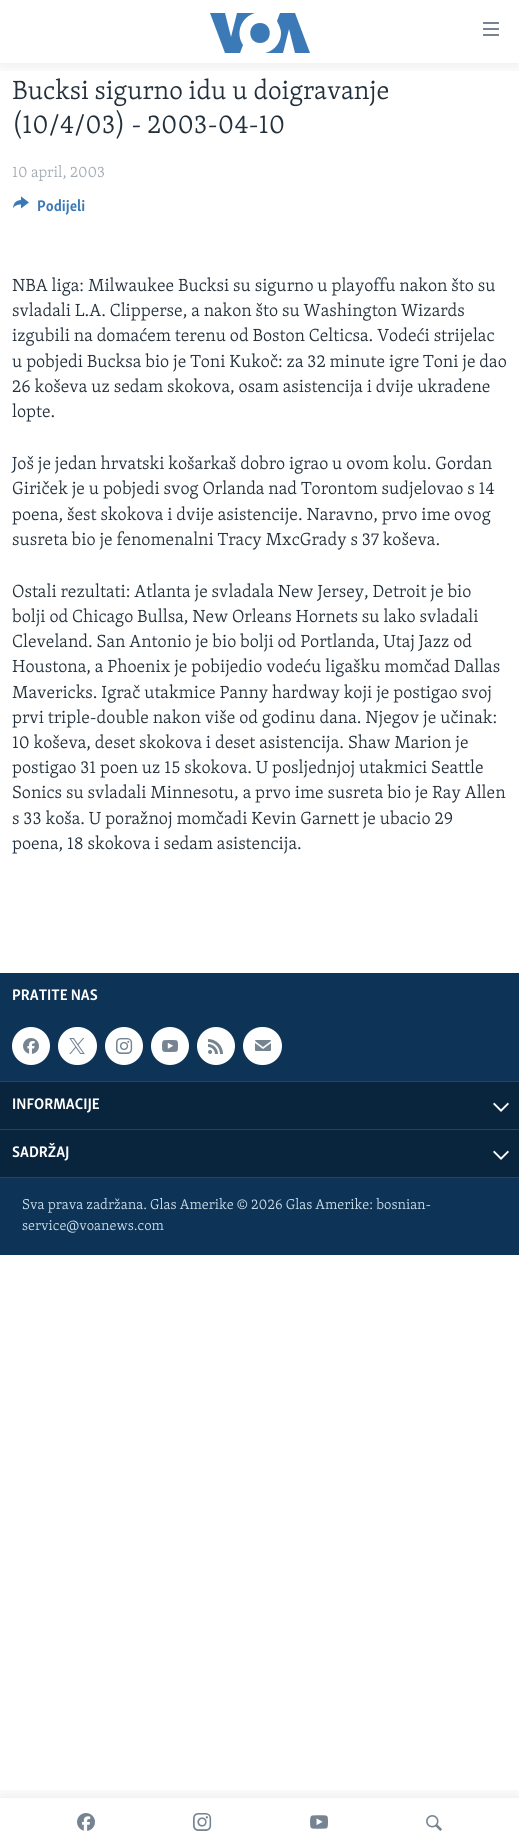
import math
import cairo

surface = cairo.ImageSurface(cairo.FORMAT_RGB24, 519, 1848)
c = cairo.Context(surface)
options = cairo.FontOptions()
options.set_hint_metrics(cairo.HINT_METRICS_OFF)
options.set_hint_style(cairo.HINT_STYLE_NONE)
c.set_font_options(options)
c.set_miter_limit(4)
def C(code):
 c.set_source_rgb(*(v / 255 for v in bytes.fromhex(code[-6:])))
def F(family, size, italic, bold):
 c.select_font_face(family, cairo.FONT_SLANT_ITALIC if italic else cairo.FONT_SLANT_NORMAL, cairo.FONT_WEIGHT_BOLD if bold else cairo.FONT_WEIGHT_NORMAL)
 c.set_font_size(size)
def T(x, y, s):
 c.move_to(x, y)
 c.show_text(s)
def R(x, y, w, h):
 c.rectangle(x, y, w, h)
 c.fill()
def Q(x, y, w, h, r):
 c.new_sub_path()
 for i, (u, v) in enumerate([(x + w - r, y + h - r), (x + r, y + h - r), (x + r, y + r), (x + w - r, y + r)]):
  c.arc(u, v, r, i * math.pi / 2, (i + 1) * math.pi / 2)
 c.close_path()
def S(x, y, w, h, r, blur, alpha):
 c.push_group_with_content(cairo.CONTENT_ALPHA)
 c.set_operator(cairo.OPERATOR_SOURCE)
 for i in range(15, -16, -2):
  e = blur * i / 6
  if min(w, h) + 2 * e > 0:
   c.set_source_rgba(0, 0, 0, alpha * math.erfc((i - 1) / 8.5) / 2)
   Q(x - e, y - e, w + 2 * e, h + 2 * e, max(0, min(r + e + blur * .6, min(w, h) / 2 + e)))
   c.fill()
 c.mask(c.pop_group())
def I(path, x, y, w, h):
 c.save()
 c.set_source_surface(cairo.ImageSurface.create_from_png(path), x, y)
 c.rectangle(x, y, w, h)
 c.fill()
 c.restore()
C('ffffff')
c.paint()
c.save()
c.rectangle(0,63,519,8)
c.clip()
C('000000')
S(0,0,519,63,0,10,.1)
c.restore()
C('3b79b7')
c.new_path()
c.move_to(243,45)
c.line_to(240,53)
c.line_to(225,53)
c.line_to(210,13)
c.line_to(225,13)
c.line_to(231,37)
c.line_to(237,13)
c.line_to(255,13)
c.curve_to(241,17,235,33,243,45)
c.close_path()
c.move_to(260,23)
c.curve_to(247,23,247,43,260,43)
c.curve_to(273,43,273,23,260,23)
c.close_path()
c.move_to(281,33)
c.curve_to(281,43,274,51,265,53)
c.line_to(283,53)
c.line_to(289,29)
c.line_to(295,53)
c.line_to(310,53)
c.line_to(295,13)
c.line_to(280,13)
c.line_to(277,21)
c.curve_to(279,25,281,29,281,33)
c.close_path()
c.fill()
I('1.png',483,22,16,14)
c.save()
c.rectangle(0,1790,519,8)
c.clip()
C('000000')
S(0,1798,519,50,0,10,.1)
c.restore()
I('2.png',77,1813,18,18)
I('3.png',193,1813,19,18)
I('4.png',310,1815,18,14)
I('5.png',426,1815,16,16)
F('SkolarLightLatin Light',27,0,0)
C('222f3a')
T(12,99,'Bucksi sigurno idu u doigravanje')
T(12,133,'(10/4/03) - 2003-04-10')
F('SkolarLightLatin Light',15.75,0,0)
C('a1aab4')
T(12,177,'10 april, 2003')
I('6.png',13,196,16,13)
F('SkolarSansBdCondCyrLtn',15.75,0,1)
C('3a79b7')
T(37,211,'Podijeli')
F('SkolarLightLatin Light',18,0,0)
C('222f3a')
T(12,291,'NBA liga: Milwaukee Bucksi su sigurno u playoffu nakon što su')
T(12,316,'svladali L.A. Clipperse, a nakon što su Washington Wizards')
T(12,341,'izgubili na domaćem terenu od Boston Celticsa. Vodeći strijelac')
T(12,367,'u pobjedi Bucksa bio je Toni Kukoč: za 32 minute igre Toni je dao')
T(12,392,'26 koševa uz sedam skokova, osam asistencija i dvije ukradene')
T(12,417,'lopte.')
T(12,469,'Još je jedan hrvatski košarkaš dobro igrao u ovom kolu. Gordan')
T(12,494,'Giriček je u pobjedi svog Orlanda nad Torontom sudjelovao s 14')
T(12,520,'poena, šest skokova i dvije asistencije. Naravno, prvo ime ovog')
T(12,545,'susreta bio je fenomenalni Tracy MxcGrady s 37 koševa.')
T(12,597,'Ostali rezultati: Atlanta je svladala New Jersey, Detroit je bio')
T(12,622,'bolji od Chicago Bullsa, New Orleans Hornets su lako svladali')
T(12,647,'Cleveland. San Antonio je bio bolji od Portlanda, Utaj Jazz od')
T(12,672,'Houstona, a Phoenix je pobijedio vodeću ligašku momčad Dallas')
T(12,698,'Mavericks. Igrač utakmice Panny hardway koji je postigao svoj')
T(12,723,'prvi triple-double nakon više od godinu dana. Njegov je učinak:')
T(12,748,'10 koševa, deset skokova i deset asistencija. Shaw Marion je')
T(12,773,'postigao 31 poen uz 15 skokova. U posljednjoj utakmici Seattle')
T(12,798,'Sonics su svladali Minnesotu, a prvo ime susreta bio je Ray Allen')
T(12,824,'s 33 koša. U poražnoj momčadi Kevin Garnett je ubacio 29')
T(12,849,'poena, 18 skokova i sedam asistencija.')
C('0d3456')
R(0,973,519,282)
C('134976')
R(0,1177,519,1)
F('SkolarSansBdCondCyrLtn',15.75,0,1)
C('ffffff')
T(12,1000,'PRATITE NAS')
c.new_path()
c.arc(31,1046,19,0,2 * math.pi)
c.fill()
I('7.png',23,1038,16,16)
Q(58,1027,39,38,19)
c.fill()
I('8.png',69,1038,16,16)
c.arc(124,1046,19,0,2 * math.pi)
c.fill()
I('9.png',116,1038,17,16)
c.arc(170,1046,19,0,2 * math.pi)
c.fill()
I('10.png',162,1040,16,12)
c.arc(216,1046,19,0,2 * math.pi)
c.fill()
I('11.png',208,1039,15,15)
Q(243,1027,39,38,19)
c.fill()
I('12.png',255,1040,16,11)
C('134976')
R(0,1081,519,1)
C('09243d')
R(0,1082,519,47)
C('ffffff')
T(12,1109,'INFORMACIJE')
I('13.png',493,1102,16,10)
C('134976')
R(0,1129,519,1)
C('09243d')
R(0,1130,519,47)
C('ffffff')
T(12,1157,'SADRŽAJ')
I('13.png',493,1150,16,10)
F('SkolarLightLatin Light',14.6,0,0)
C('d1e1ee')
T(22,1209,'Sva prava zadržana. Glas Amerike © 2026 Glas Amerike: bosnian-')
T(22,1230,'service@voanews.com')
surface.write_to_png('o.png')
